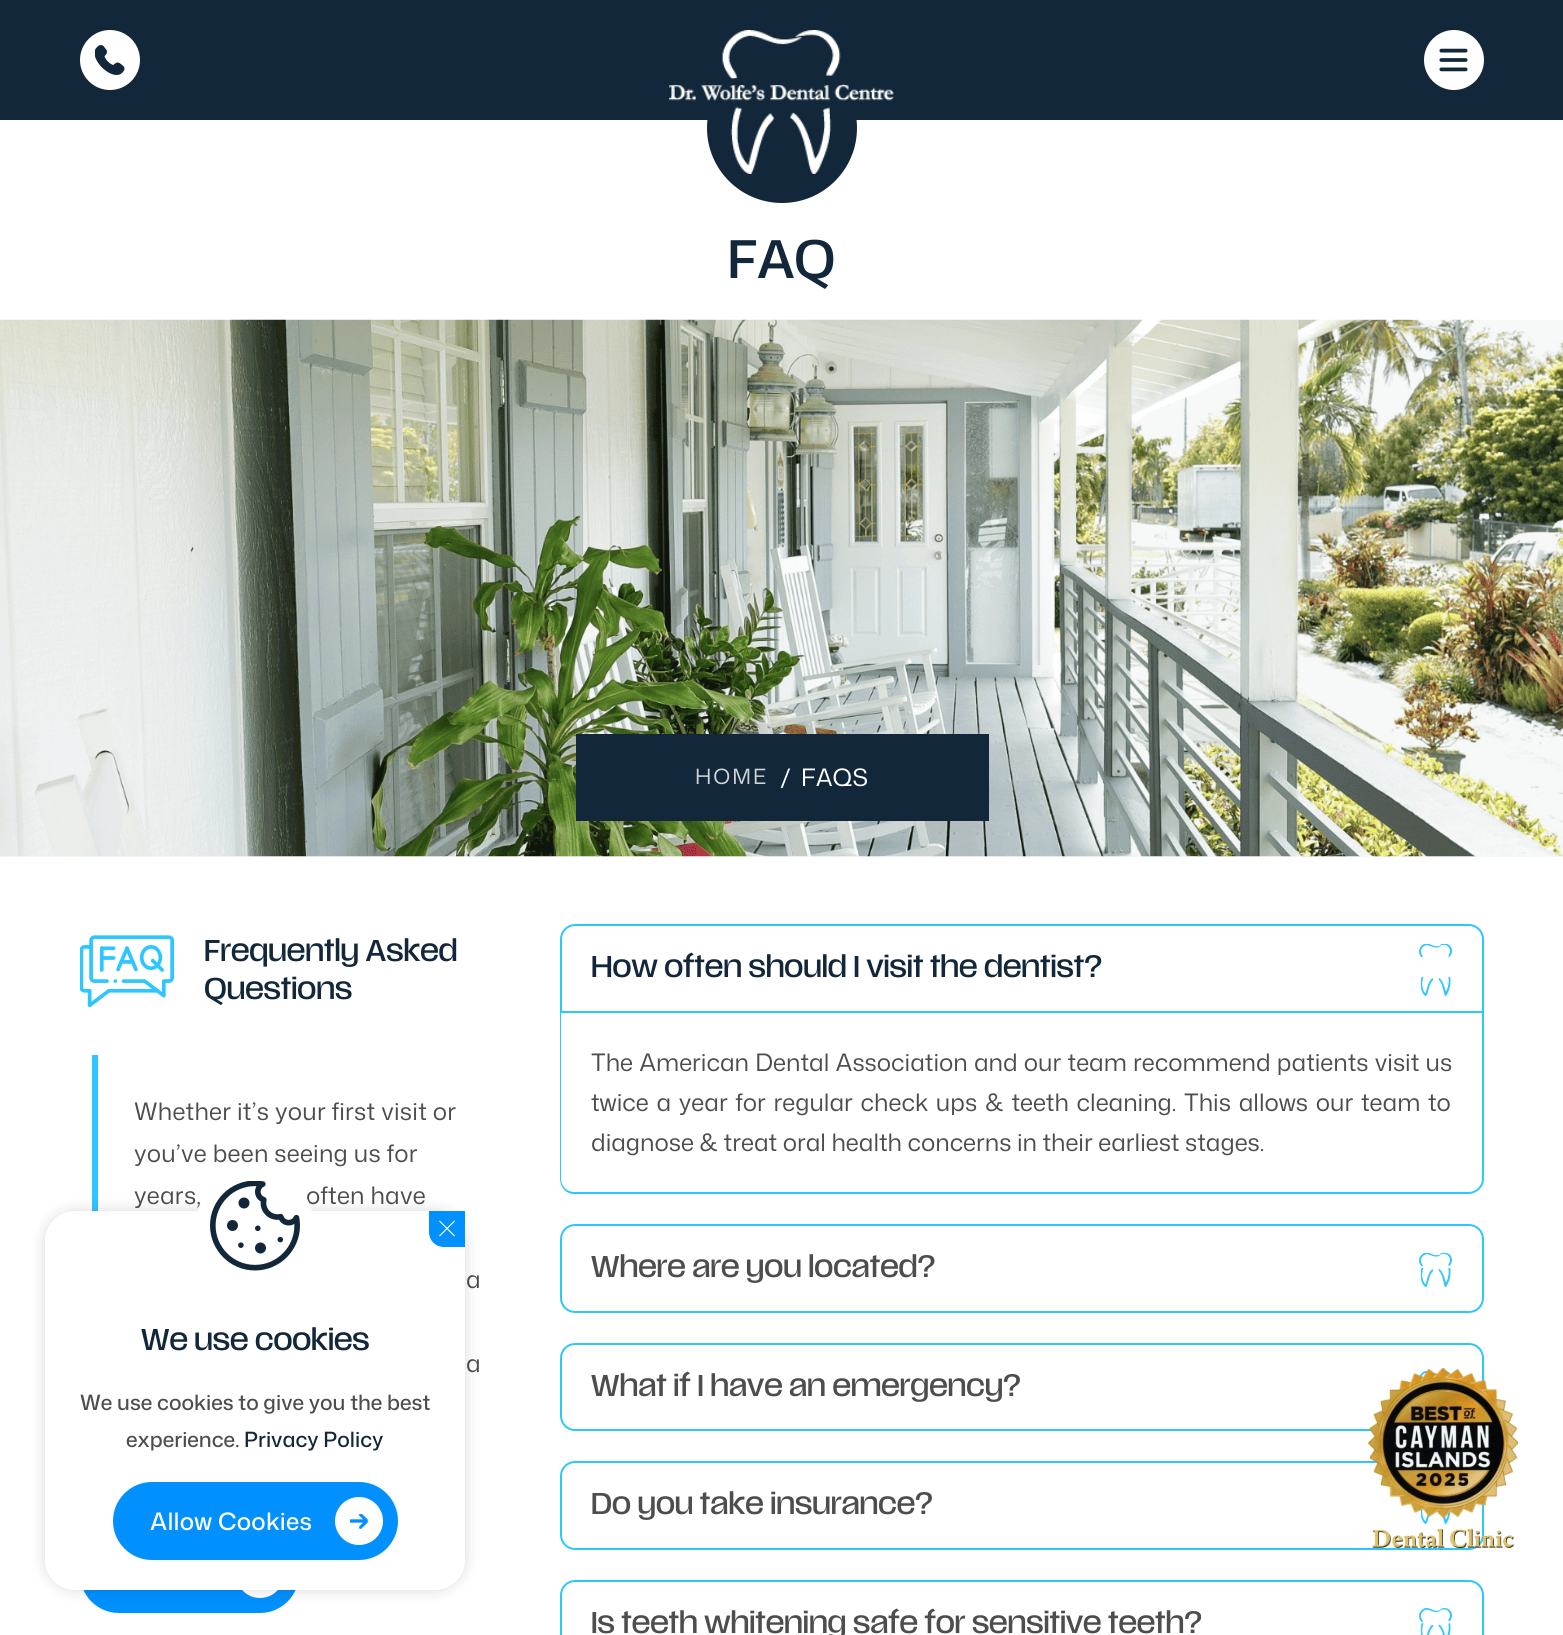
import math
import cairo

surface = cairo.ImageSurface(cairo.FORMAT_RGB24, 1563, 1635)
c = cairo.Context(surface)
options = cairo.FontOptions()
options.set_hint_metrics(cairo.HINT_METRICS_OFF)
options.set_hint_style(cairo.HINT_STYLE_NONE)
c.set_font_options(options)
c.set_miter_limit(4)
def C(code):
 c.set_source_rgb(*(v / 255 for v in bytes.fromhex(code[-6:])))
def F(family, size, italic, bold):
 c.select_font_face(family, cairo.FONT_SLANT_ITALIC if italic else cairo.FONT_SLANT_NORMAL, cairo.FONT_WEIGHT_BOLD if bold else cairo.FONT_WEIGHT_NORMAL)
 c.set_font_size(size)
def T(x, y, s):
 c.move_to(x, y)
 c.show_text(s)
def L(x, y, s, letter, word):
 c.move_to(x, y)
 for ch in s:
  c.show_text(ch)
  c.rel_move_to(letter + word * (ch == ' '), 0)
def R(x, y, w, h):
 c.rectangle(x, y, w, h)
 c.fill()
def Q(x, y, w, h, r):
 c.new_sub_path()
 for i, (u, v) in enumerate([(x + w - r, y + h - r), (x + r, y + h - r), (x + r, y + r), (x + w - r, y + r)]):
  c.arc(u, v, r, i * math.pi / 2, (i + 1) * math.pi / 2)
 c.close_path()
def S(x, y, w, h, r, blur, alpha):
 c.push_group_with_content(cairo.CONTENT_ALPHA)
 c.set_operator(cairo.OPERATOR_SOURCE)
 for i in range(15, -16, -2):
  e = blur * i / 6
  if min(w, h) + 2 * e > 0:
   c.set_source_rgba(0, 0, 0, alpha * math.erfc((i - 1) / 8.5) / 2)
   Q(x - e, y - e, w + 2 * e, h + 2 * e, max(0, min(r + e + blur * .6, min(w, h) / 2 + e)))
   c.fill()
 c.mask(c.pop_group())
def I(path, x, y, w, h):
 c.save()
 c.set_source_surface(cairo.ImageSurface.create_from_png(path), x, y)
 c.rectangle(x, y, w, h)
 c.fill()
 c.restore()
C('ffffff')
c.paint()
C('12273a')
R(0,0,1563,120)
C('ffffff')
c.arc(110,60,30,0,2 * math.pi)
c.fill()
I('1.png',95,45,30,30)
C('12273a')
c.arc(782,128,75,0,2 * math.pi)
c.fill()
I('2.png',669,30,225,144)
C('ffffff')
c.arc(1454,60,30,0,2 * math.pi)
c.fill()
I('3.png',1439,48,29,24)
F('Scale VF',54,0,0)
C('12273a')
T(728,278,'FAQ')
C('f7f7f7')
R(0,856,1563,1)
I('4.png',0,319,1563,538)
C('12273a')
R(576,734,413,87)
F('Mona Sans',21,0,0)
C('d0d4d8')
L(695,784,'HOME',2,0)
F('Mona Sans',24,0,0)
C('ffffff')
T(781,786,'/')
T(801,786,'FAQS')
I('5.png',80,935,94,73)
F('Scale VF',30,0,0)
C('12273a')
T(204,961,'Frequently Asked')
T(204,999,'Questions')
C('2dc6ff')
R(92,1055,6,156)
F('Mona Sans',24,0,0)
C('4d4d4d')
L(134,1120,'Whether it’s your first visit or',.25,0)
L(134,1162,'you’ve been seeing us for',.25,0)
L(134,1204,'years,',.25,0)
L(306,1204,'often have',.25,0)
L(466,1288,'a',.25,0)
L(466,1372,'a',.25,0)
C('0090ff')
Q(80,1535,219,78,39)
c.fill()
C('ffffff')
c.arc(260,1574,24,0,2 * math.pi)
c.fill()
C('2dc6ff')
c.set_fill_rule(cairo.FILL_RULE_EVEN_ODD)
c.new_path()
c.move_to(560,1012)
c.line_to(1484,1012)
c.line_to(1484,1179)
c.curve_to(1484,1187,1477,1194,1468,1194)
c.line_to(574,1194)
c.curve_to(566,1194,560,1187,560,1179)
c.close_path()
c.move_to(561,1012)
c.line_to(1482,1012)
c.line_to(1482,1179)
c.curve_to(1482,1186,1476,1192,1468,1192)
c.line_to(574,1192)
c.curve_to(567,1192,561,1186,561,1179)
c.close_path()
c.fill()
c.new_path()
c.move_to(575,925)
c.line_to(1469,925)
c.curve_to(1476.5,925,1483,931.5,1483,939)
c.line_to(1483,1012)
c.line_to(561,1012)
c.line_to(561,939)
c.curve_to(561,931.5,567.5,925,575,925)
c.close_path()
c.stroke()
F('Scale VF',30,0,0)
C('12273a')
T(591,977,'How often should I visit the dentist?')
I('6.png',1419,944,33,13)
I('7.png',1421,977,30,19)
F('Mona Sans',24,0,0)
C('4d4d4d')
L(591,1071,'The American Dental Association and our team recommend patients visit us',0,.75)
L(591,1111,'twice a year for regular check ups & teeth cleaning. This allows our team to',0,2.25)
T(591,1151,'diagnose & treat oral health concerns in their earliest stages.')
Q(561,1225,922,87,14)
C('2dc6ff')
c.stroke()
F('Scale VF',30,0,0)
C('4d4d4d')
T(591,1277,'Where are you located?')
I('6.png',1419,1253,33,13)
I('7.png',1421,1268,30,19)
Q(561,1344,922,86,14)
C('2dc6ff')
c.stroke()
C('4d4d4d')
T(591,1396,'What if I have an emergency?')
I('8.png',1419,1371,32,7)
Q(561,1462,922,87,14)
C('2dc6ff')
c.stroke()
C('4d4d4d')
T(591,1514,'Do you take insurance?')
I('9.png',1421,1509,30,15)
Q(561,1581,922,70,14)
C('2dc6ff')
c.stroke()
C('4d4d4d')
T(591,1633,'Is teeth whitening safe for sensitive teeth?')
I('10.png',1419,1608,33,14)
I('11.png',1421,1623,30,12)
C('000000')
S(45,1211,420,379,30,7.5,.15)
C('ffffff')
Q(45,1211,420,379,30)
c.fill()
c.new_path()
c.move_to(255,1165.5)
c.curve_to(288,1165.5,315,1195,315,1231.5)
c.curve_to(315,1268,288,1297.5,255,1297.5)
c.curve_to(222,1297.5,195,1268,195,1231.5)
c.curve_to(195,1195,222,1165.5,255,1165.5)
c.close_path()
c.fill()
I('12.png',210,1181,90,90)
C('0090ff')
c.new_path()
c.move_to(429,1211)
c.line_to(465,1211)
c.line_to(465,1247)
c.line_to(444,1247)
c.curve_to(435.5,1247,429,1240.5,429,1232)
c.close_path()
c.fill()
I('13.png',439,1220,16,17)
C('12273a')
T(141,1350,'We use cookies')
F('Mona Sans Medium',21,0,0)
C('4d4d4d')
T(80,1410,'We use cookies to give you the best')
T(126,1447,'experience.')
C('12273a')
T(244,1447,'Privacy Policy')
C('0090ff')
Q(113,1482,285,78,39)
c.fill()
F('Mona Sans Medium',24,0,0)
C('ffffff')
L(150,1530,'Allow Cookies',.25,0)
c.new_path()
c.arc(359,1521,24,0,2 * math.pi)
c.fill()
I('14.png',350,1514,18,15)
I('15.png',1368,1368,150,180)
surface.write_to_png('o.png')
